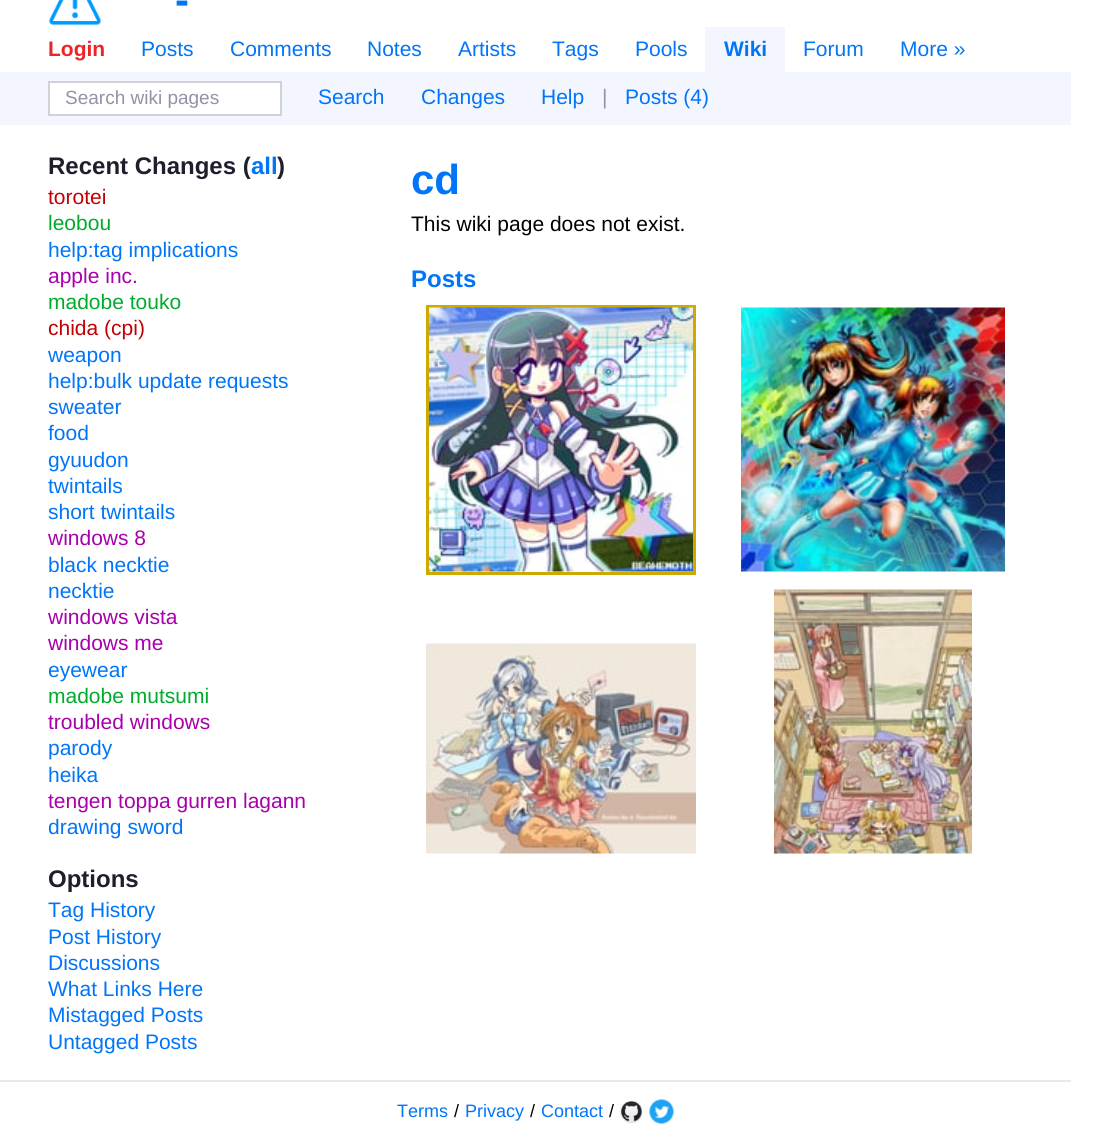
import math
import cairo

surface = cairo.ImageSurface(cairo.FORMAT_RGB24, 1093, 1137)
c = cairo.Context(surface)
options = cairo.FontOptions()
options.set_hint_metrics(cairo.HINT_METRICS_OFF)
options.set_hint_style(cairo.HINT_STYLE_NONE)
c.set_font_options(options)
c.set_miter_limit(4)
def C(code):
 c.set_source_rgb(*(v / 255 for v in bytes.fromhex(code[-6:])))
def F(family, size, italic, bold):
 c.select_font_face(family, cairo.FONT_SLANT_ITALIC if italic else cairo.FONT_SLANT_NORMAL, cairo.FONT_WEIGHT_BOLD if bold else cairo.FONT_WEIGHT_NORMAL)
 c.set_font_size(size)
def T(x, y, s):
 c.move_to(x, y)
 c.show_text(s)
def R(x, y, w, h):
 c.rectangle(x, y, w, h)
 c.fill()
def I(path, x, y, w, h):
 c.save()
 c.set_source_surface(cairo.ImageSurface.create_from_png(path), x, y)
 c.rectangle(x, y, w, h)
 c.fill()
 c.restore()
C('ffffff')
c.paint()
I('1.png',48,0,54,26)
F('Liberation Sans',42,0,1)
C('0075f8')
T(175,14,'-')
F('Liberation Sans',21,0,1)
C('ed2426')
T(48,56,'Login')
F('Liberation Sans',21,0,0)
C('0075f8')
T(141,56,'Posts')
T(230,56,'Comments')
T(367,56,'Notes')
T(458,56,'Artists')
T(552,56,'Tags')
T(635,56,'Pools')
C('f4f6ff')
R(705,27,80,45)
F('Liberation Sans',21,0,1)
C('0075f8')
T(724,56,'Wiki')
F('Liberation Sans',21,0,0)
T(803,56,'Forum')
T(900,56,'More »')
C('f4f6ff')
R(0,72,1071,53)
C('ffffff')
c.rectangle(49,82,232,33)
c.fill_preserve()
C('d1d1da')
c.stroke()
F('Liberation Sans',19,0,0)
C('9192a7')
T(65,104,'Search wiki pages')
F('Liberation Sans',21,0,0)
C('0075f8')
T(318,104,'Search')
T(421,104,'Changes')
T(541,104,'Help')
C('9192a7')
T(602,104,'|')
C('0075f8')
T(625,104,'Posts (4)')
F('Liberation Sans',24,0,1)
C('1e1e2c')
T(48,174,'Recent Changes (')
C('0075f8')
T(251,174,'all')
C('1e1e2c')
T(277,174,')')
F('Liberation Sans',21,0,0)
C('c00004')
T(48,204,'torotei')
C('00ab2c')
T(48,230,'leobou')
C('0075f8')
T(48,257,'help:tag implications')
C('a800aa')
T(48,283,'apple inc.')
C('00ab2c')
T(48,309,'madobe touko')
C('c00004')
T(48,335,'chida (cpi)')
C('0075f8')
T(48,362,'weapon')
T(48,388,'help:bulk update requests')
T(48,414,'sweater')
T(48,440,'food')
T(48,467,'gyuudon')
T(48,493,'twintails')
T(48,519,'short twintails')
C('a800aa')
T(48,545,'windows 8')
C('0075f8')
T(48,572,'black necktie')
T(48,598,'necktie')
C('a800aa')
T(48,624,'windows vista')
T(48,650,'windows me')
C('0075f8')
T(48,677,'eyewear')
C('00ab2c')
T(48,703,'madobe mutsumi')
C('a800aa')
T(48,729,'troubled windows')
C('0075f8')
T(48,755,'parody')
T(48,782,'heika')
C('a800aa')
T(48,808,'tengen toppa gurren lagann')
C('0075f8')
T(48,834,'drawing sword')
F('Liberation Sans',24,0,1)
C('1e1e2c')
T(48,887,'Options')
F('Liberation Sans',21,0,0)
C('0075f8')
T(48,917,'Tag History')
T(48,944,'Post History')
T(48,970,'Discussions')
T(48,996,'What Links Here')
T(48,1022,'Mistagged Posts')
T(48,1049,'Untagged Posts')
F('Liberation Sans',42,0,1)
T(411,194,'cd')
F('Liberation Sans',21,0,0)
C('000000')
T(411,231,'This wiki page does not exist.')
F('Liberation Sans',24,0,1)
C('0075f8')
T(411,287,'Posts')
c.rectangle(427.5,306.5,267,267)
C('ccaa00')
c.set_line_width(3)
c.stroke()
I('2.png',429,307,264,265)
I('3.png',741,307,264,265)
I('4.png',426,643,270,211)
I('5.png',774,589,198,265)
C('e8e8ec')
R(0,1080,1071,2)
F('Liberation Sans',18,0,0)
C('0075f8')
T(397,1117,'Terms')
C('000000')
T(454,1117,'/')
C('0075f8')
T(465,1117,'Privacy')
C('000000')
T(530,1117,'/')
C('0075f8')
T(541,1117,'Contact')
C('000000')
T(609,1117,'/')
I('6.png',619,1101,25,23)
I('7.png',649,1099,25,25)
surface.write_to_png('o.png')
